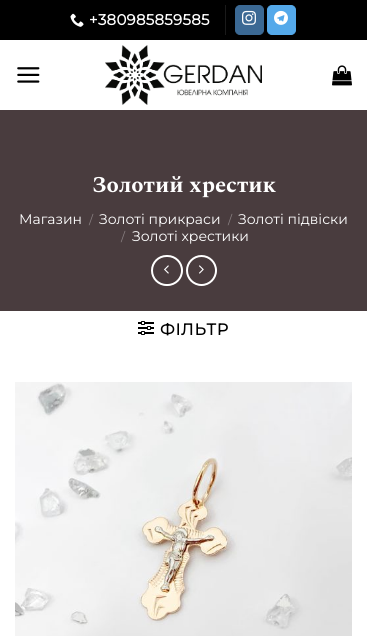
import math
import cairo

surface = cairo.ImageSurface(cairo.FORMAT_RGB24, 367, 636)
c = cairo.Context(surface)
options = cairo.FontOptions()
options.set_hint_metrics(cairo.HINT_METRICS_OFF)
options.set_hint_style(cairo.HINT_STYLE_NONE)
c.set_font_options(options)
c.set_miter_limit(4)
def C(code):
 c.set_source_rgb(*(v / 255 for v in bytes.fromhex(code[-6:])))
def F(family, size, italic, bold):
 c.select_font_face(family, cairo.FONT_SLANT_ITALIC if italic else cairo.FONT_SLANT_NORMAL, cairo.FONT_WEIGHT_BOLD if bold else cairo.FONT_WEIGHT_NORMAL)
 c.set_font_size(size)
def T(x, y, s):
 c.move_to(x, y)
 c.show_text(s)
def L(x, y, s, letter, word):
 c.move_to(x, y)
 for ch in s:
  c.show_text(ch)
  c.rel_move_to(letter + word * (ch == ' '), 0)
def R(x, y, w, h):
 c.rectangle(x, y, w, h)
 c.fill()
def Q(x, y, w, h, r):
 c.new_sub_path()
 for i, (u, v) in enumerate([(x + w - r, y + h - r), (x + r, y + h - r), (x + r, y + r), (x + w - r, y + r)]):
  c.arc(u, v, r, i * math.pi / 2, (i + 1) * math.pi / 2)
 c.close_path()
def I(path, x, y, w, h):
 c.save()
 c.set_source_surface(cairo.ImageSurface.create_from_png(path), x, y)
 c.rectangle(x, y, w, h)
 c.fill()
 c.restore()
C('ffffff')
c.paint()
C('000000')
R(0,0,367,40)
I('1.png',70,13,14,14)
F('Montserrat',15,0,1)
C('ffffff')
L(89,25,'+380985859585',.25,0)
C('1a1a1a')
R(225,5,1,30)
C('3b6994')
Q(235.5,5.5,28,29,4.5)
c.fill_preserve()
c.set_line_width(1)
c.stroke()
I('2.png',242,10,14,15)
C('54a9ea')
Q(267.5,5.5,28,29,4.5)
c.fill_preserve()
c.stroke()
I('3.png',274,10,14,15)
I('4.png',17,67,23,16)
I('5.png',105,45,157,60)
I('6.png',332,65,20,21)
C('493c3e')
R(0,110,367,201)
F('Spectral',22.5,0,1)
C('ffffff')
T(92,192,'Золотий хрестик')
F('Montserrat Thin',14,0,0)
T(19,224,'Магазин')
F('Montserrat Thin',12,0,0)
C('898082')
T(89,224,'/')
F('Montserrat Thin',14,0,0)
C('ffffff')
T(99,224,'Золоті прикраси')
F('Montserrat Thin',12,0,0)
C('898082')
T(228,224,'/')
F('Montserrat Thin',14,0,0)
C('ffffff')
T(238,224,'Золоті підвіски')
F('Montserrat Thin',12,0,0)
C('898082')
T(121,241,'/')
F('Montserrat Thin',14,0,0)
C('ffffff')
T(132,241,'Золоті хрестики')
Q(152,256,30,29,14.5)
c.set_line_width(2)
c.stroke()
I('7.png',164,265,5,9)
c.arc(201.5,270.5,14.5,0,2 * math.pi)
c.stroke()
I('8.png',199,265,5,9)
I('9.png',138,321,16,14)
F('Montserrat',16,0,1)
C('000000')
L(160,335,'ФІЛЬТР',.75,0)
I('10.png',15,382,337,254)
surface.write_to_png('o.png')
